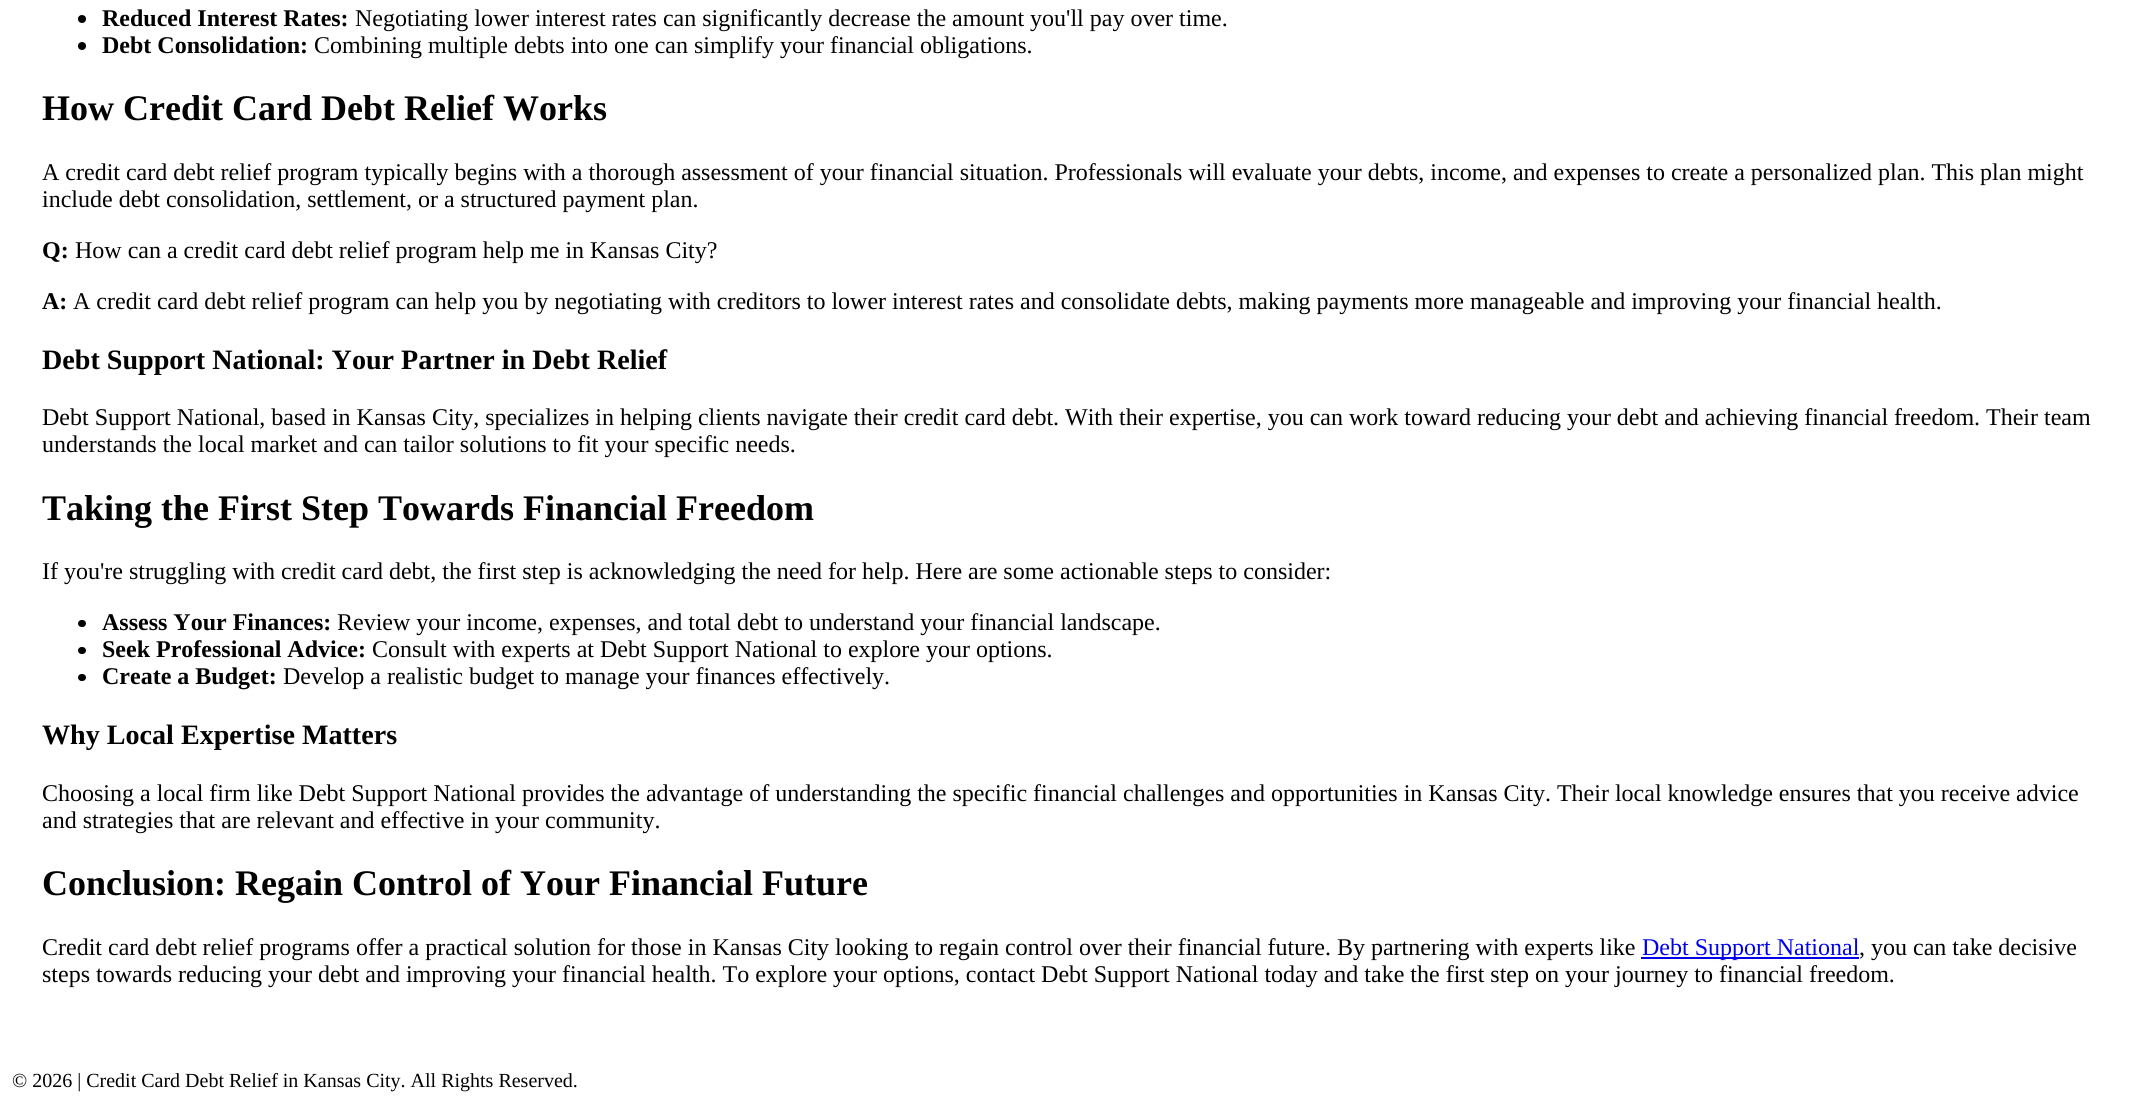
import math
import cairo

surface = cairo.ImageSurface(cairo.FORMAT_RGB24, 2156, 1110)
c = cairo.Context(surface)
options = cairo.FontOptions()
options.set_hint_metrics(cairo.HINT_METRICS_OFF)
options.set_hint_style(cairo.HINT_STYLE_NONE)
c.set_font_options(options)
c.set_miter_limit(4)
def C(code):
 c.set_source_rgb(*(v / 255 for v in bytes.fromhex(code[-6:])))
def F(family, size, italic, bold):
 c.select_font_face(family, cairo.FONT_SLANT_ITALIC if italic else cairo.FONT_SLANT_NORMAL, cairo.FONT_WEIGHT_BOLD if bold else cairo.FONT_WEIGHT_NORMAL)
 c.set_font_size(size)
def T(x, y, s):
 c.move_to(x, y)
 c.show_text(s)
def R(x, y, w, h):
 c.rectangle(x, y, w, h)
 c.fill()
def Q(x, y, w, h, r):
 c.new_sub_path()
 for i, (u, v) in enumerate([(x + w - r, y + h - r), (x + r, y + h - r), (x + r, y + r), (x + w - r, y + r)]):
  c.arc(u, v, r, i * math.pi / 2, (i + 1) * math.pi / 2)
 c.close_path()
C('ffffff')
c.paint()
C('000000')
c.arc(82,19,4,0,2 * math.pi)
c.fill()
F('Liberation Serif',24,0,1)
T(102,26,'Reduced Interest Rates:')
F('Liberation Serif',24,0,0)
T(355,26,'Negotiating lower interest rates can significantly decrease the amount you\'ll pay over time.')
c.new_path()
c.arc(82,46,4,0,2 * math.pi)
c.fill()
F('Liberation Serif',24,0,1)
T(102,53,'Debt Consolidation:')
F('Liberation Serif',24,0,0)
T(314,53,'Combining multiple debts into one can simplify your financial obligations.')
F('Liberation Serif',36,0,1)
T(42,120,'How Credit Card Debt Relief Works')
F('Liberation Serif',24,0,0)
T(42,180,'A credit card debt relief program typically begins with a thorough assessment of your financial situation. Professionals will evaluate your debts, income, and expenses to create a personalized plan. This plan might')
T(42,207,'include debt consolidation, settlement, or a structured payment plan.')
F('Liberation Serif',24,0,1)
T(42,258,'Q:')
F('Liberation Serif',24,0,0)
T(75,258,'How can a credit card debt relief program help me in Kansas City?')
F('Liberation Serif',24,0,1)
T(42,309,'A:')
F('Liberation Serif',24,0,0)
T(73,309,'A credit card debt relief program can help you by negotiating with creditors to lower interest rates and consolidate debts, making payments more manageable and improving your financial health.')
F('Liberation Serif',28.1,0,1)
T(42,369,'Debt Support National: Your Partner in Debt Relief')
F('Liberation Serif',24,0,0)
T(42,425,'Debt Support National, based in Kansas City, specializes in helping clients navigate their credit card debt. With their expertise, you can work toward reducing your debt and achieving financial freedom. Their team')
T(42,452,'understands the local market and can tailor solutions to fit your specific needs.')
F('Liberation Serif',36,0,1)
T(42,520,'Taking the First Step Towards Financial Freedom')
F('Liberation Serif',24,0,0)
T(42,579,'If you\'re struggling with credit card debt, the first step is acknowledging the need for help. Here are some actionable steps to consider:')
Q(78,620,8,7,3.5)
c.fill()
F('Liberation Serif',24,0,1)
T(102,630,'Assess Your Finances:')
F('Liberation Serif',24,0,0)
T(337,630,'Review your income, expenses, and total debt to understand your financial landscape.')
Q(78,647,8,7,3.5)
c.fill()
F('Liberation Serif',24,0,1)
T(102,657,'Seek Professional Advice:')
F('Liberation Serif',24,0,0)
T(372,657,'Consult with experts at Debt Support National to explore your options.')
Q(78,674,8,7,3.5)
c.fill()
F('Liberation Serif',24,0,1)
T(102,684,'Create a Budget:')
F('Liberation Serif',24,0,0)
T(283,684,'Develop a realistic budget to manage your finances effectively.')
F('Liberation Serif',28.1,0,1)
T(42,744,'Why Local Expertise Matters')
F('Liberation Serif',24,0,0)
T(42,801,'Choosing a local firm like Debt Support National provides the advantage of understanding the specific financial challenges and opportunities in Kansas City. Their local knowledge ensures that you receive advice')
T(42,828,'and strategies that are relevant and effective in your community.')
F('Liberation Serif',36,0,1)
T(42,895,'Conclusion: Regain Control of Your Financial Future')
F('Liberation Serif',24,0,0)
T(42,955,'Credit card debt relief programs offer a practical solution for those in Kansas City looking to regain control over their financial future. By partnering with experts like')
C('0000ee')
R(1641,957,218,2)
T(1642,955,'Debt Support National')
C('000000')
T(1859,955,', you can take decisive')
T(42,982,'steps towards reducing your debt and improving your financial health. To explore your options, contact Debt Support National today and take the first step on your journey to financial freedom.')
F('Liberation Serif',20,0,0)
T(12,1087,'© 2026 | Credit Card Debt Relief in Kansas City. All Rights Reserved.')
surface.write_to_png('o.png')
